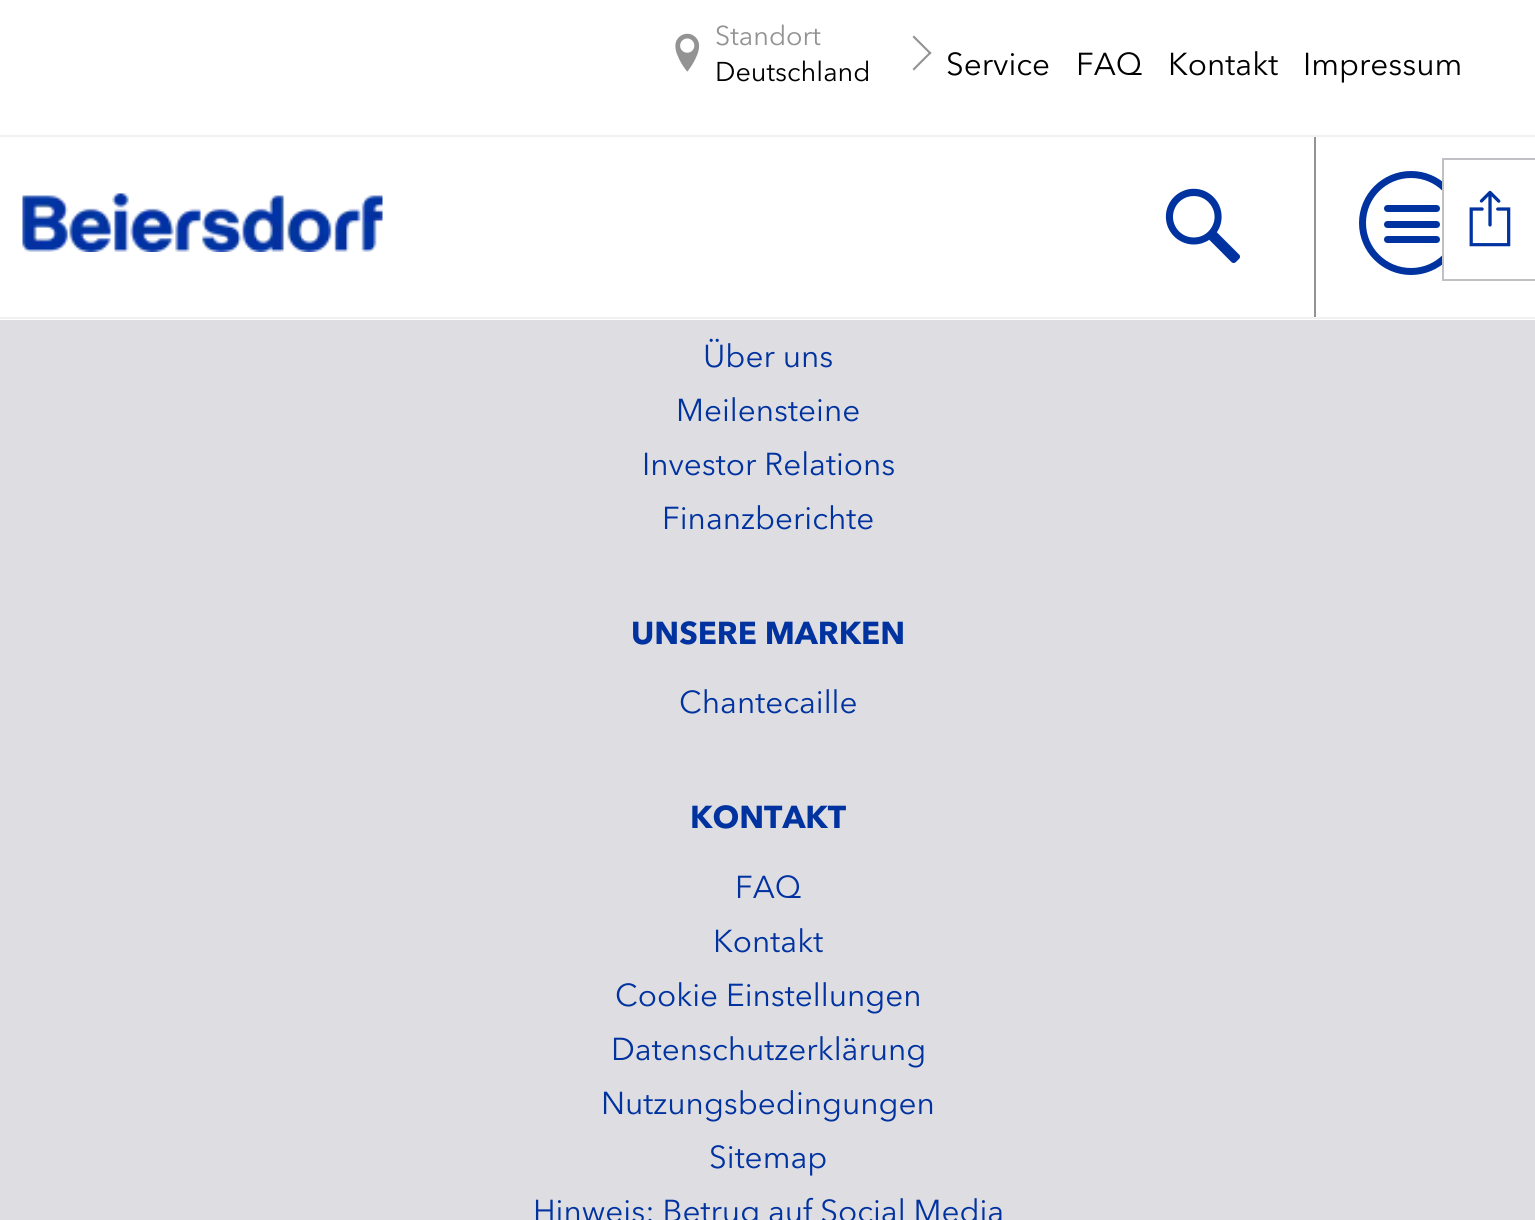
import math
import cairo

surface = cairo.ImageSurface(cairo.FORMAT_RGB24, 1535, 1220)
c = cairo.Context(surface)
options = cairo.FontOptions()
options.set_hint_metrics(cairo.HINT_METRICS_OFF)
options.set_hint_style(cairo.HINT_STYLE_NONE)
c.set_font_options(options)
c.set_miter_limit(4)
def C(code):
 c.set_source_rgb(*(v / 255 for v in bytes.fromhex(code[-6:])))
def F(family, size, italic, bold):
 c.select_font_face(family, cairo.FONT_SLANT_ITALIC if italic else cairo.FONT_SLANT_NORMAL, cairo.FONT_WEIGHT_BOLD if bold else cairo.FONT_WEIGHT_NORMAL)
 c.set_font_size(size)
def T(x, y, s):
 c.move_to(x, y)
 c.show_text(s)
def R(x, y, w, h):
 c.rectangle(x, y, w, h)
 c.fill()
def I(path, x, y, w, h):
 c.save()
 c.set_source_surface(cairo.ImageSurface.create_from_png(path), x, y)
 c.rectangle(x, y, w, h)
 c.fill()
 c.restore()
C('dedde1')
c.paint()
C('ffffff')
R(0,0,1535,320)
I('1.png',675,33,25,39)
F('Avenir Next',27,0,0)
C('939393')
T(715,45,'Standort')
c.new_path()
c.move_to(912.5,37)
c.line_to(914,35.5)
c.line_to(931.5,53)
c.line_to(930,54.5)
c.close_path()
c.fill()
c.new_path()
c.move_to(912.5,69)
c.line_to(930,51.5)
c.line_to(931.5,53)
c.line_to(914,70.5)
c.close_path()
c.fill()
C('000000')
T(715,81,'Deutschland')
F('Avenir Next',31.5,0,0)
T(946,75,'Service')
T(1076,75,'FAQ')
T(1168,75,'Kontakt')
T(1303,75,'Impressum')
I('2.png',22,193,361,59)
C('f1f1f1')
R(0,135,1535,2)
R(0,317,1535,2)
I('3.png',1165,188,75,75)
C('939393')
R(1314,137,2,180)
c.arc(1411,223,48.5,0,2 * math.pi)
C('0032a0')
c.set_line_width(7)
c.stroke()
c.new_path()
c.move_to(1387.5,205)
c.line_to(1413,205)
c.line_to(1413,212)
c.line_to(1387.5,212)
c.curve_to(1385.5,212,1384,210.5,1384,208.5)
c.curve_to(1384,206.5,1385.5,205,1387.5,205)
c.close_path()
c.fill()
c.new_path()
c.move_to(1409,205)
c.line_to(1436.5,205)
c.curve_to(1438.5,205,1440,206.5,1440,208.5)
c.curve_to(1440,210.5,1438.5,212,1436.5,212)
c.line_to(1409,212)
c.close_path()
c.fill()
c.new_path()
c.move_to(1387.5,221)
c.line_to(1413,221)
c.line_to(1413,228)
c.line_to(1387.5,228)
c.curve_to(1385.5,228,1384,226.5,1384,224.5)
c.curve_to(1384,222.5,1385.5,221,1387.5,221)
c.close_path()
c.fill()
c.new_path()
c.move_to(1409,221)
c.line_to(1436.5,221)
c.curve_to(1438.5,221,1440,222.5,1440,224.5)
c.curve_to(1440,226.5,1438.5,228,1436.5,228)
c.line_to(1409,228)
c.close_path()
c.fill()
c.new_path()
c.move_to(1387.5,236)
c.line_to(1413,236)
c.line_to(1413,243)
c.line_to(1387.5,243)
c.curve_to(1385.5,243,1384,241.5,1384,239.5)
c.curve_to(1384,237.5,1385.5,236,1387.5,236)
c.close_path()
c.fill()
c.new_path()
c.move_to(1409,236)
c.line_to(1436.5,236)
c.curve_to(1438.5,236,1440,237.5,1440,239.5)
c.curve_to(1440,241.5,1438.5,243,1436.5,243)
c.line_to(1409,243)
c.close_path()
c.fill()
C('ffffff')
R(1444,182,19,82)
c.rectangle(1443,159,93,121)
C('bfbfc4')
c.set_line_width(2)
c.stroke()
I('4.png',1469,190,42,57)
C('0032a0')
T(703,367,'Über uns')
T(676,421,'Meilensteine')
T(642,475,'Investor Relations')
T(662,529,'Finanzberichte')
F('Avenir Next',31.5,0,1)
T(631,644,'UNSERE MARKEN')
F('Avenir Next',31.5,0,0)
T(679,713,'Chantecaille')
F('Avenir Next',31.5,0,1)
T(690,828,'KONTAKT')
F('Avenir Next',31.5,0,0)
T(735,898,'FAQ')
T(713,952,'Kontakt')
T(615,1006,'Cookie Einstellungen')
T(611,1060,'Datenschutzerklärung')
T(601,1114,'Nutzungsbedingungen')
T(709,1168,'Sitemap')
T(533,1222,'Hinweis: Betrug auf Social Media')
surface.write_to_png('o.png')
